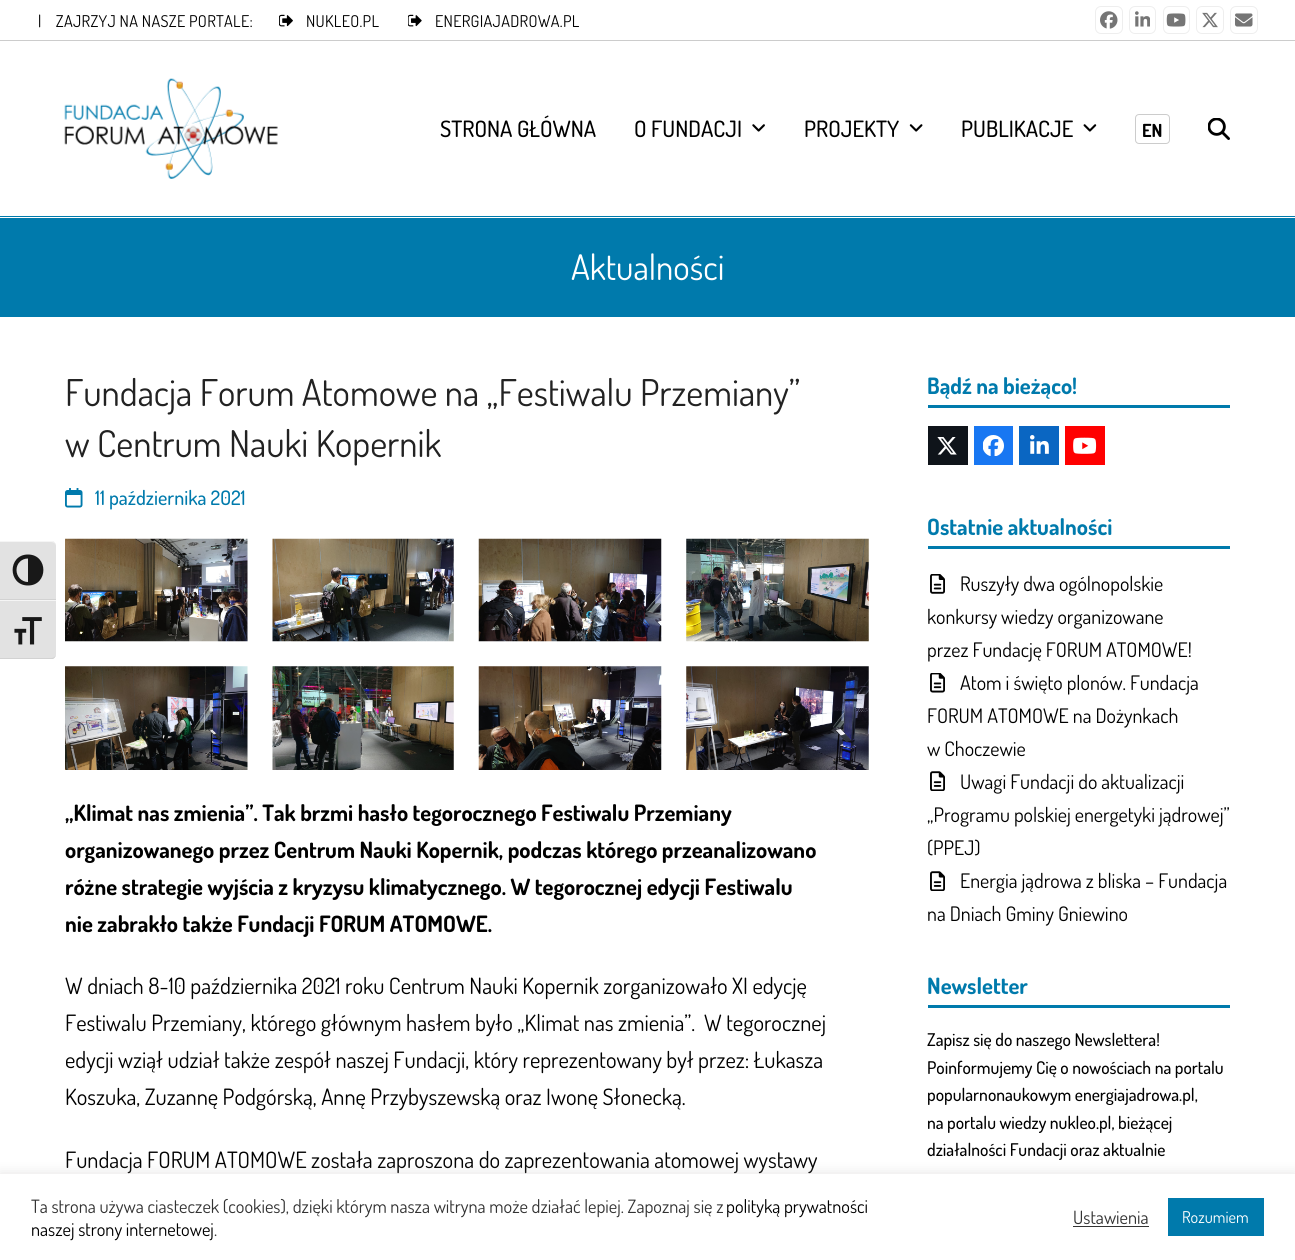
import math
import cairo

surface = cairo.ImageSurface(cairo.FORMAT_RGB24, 1295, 1260)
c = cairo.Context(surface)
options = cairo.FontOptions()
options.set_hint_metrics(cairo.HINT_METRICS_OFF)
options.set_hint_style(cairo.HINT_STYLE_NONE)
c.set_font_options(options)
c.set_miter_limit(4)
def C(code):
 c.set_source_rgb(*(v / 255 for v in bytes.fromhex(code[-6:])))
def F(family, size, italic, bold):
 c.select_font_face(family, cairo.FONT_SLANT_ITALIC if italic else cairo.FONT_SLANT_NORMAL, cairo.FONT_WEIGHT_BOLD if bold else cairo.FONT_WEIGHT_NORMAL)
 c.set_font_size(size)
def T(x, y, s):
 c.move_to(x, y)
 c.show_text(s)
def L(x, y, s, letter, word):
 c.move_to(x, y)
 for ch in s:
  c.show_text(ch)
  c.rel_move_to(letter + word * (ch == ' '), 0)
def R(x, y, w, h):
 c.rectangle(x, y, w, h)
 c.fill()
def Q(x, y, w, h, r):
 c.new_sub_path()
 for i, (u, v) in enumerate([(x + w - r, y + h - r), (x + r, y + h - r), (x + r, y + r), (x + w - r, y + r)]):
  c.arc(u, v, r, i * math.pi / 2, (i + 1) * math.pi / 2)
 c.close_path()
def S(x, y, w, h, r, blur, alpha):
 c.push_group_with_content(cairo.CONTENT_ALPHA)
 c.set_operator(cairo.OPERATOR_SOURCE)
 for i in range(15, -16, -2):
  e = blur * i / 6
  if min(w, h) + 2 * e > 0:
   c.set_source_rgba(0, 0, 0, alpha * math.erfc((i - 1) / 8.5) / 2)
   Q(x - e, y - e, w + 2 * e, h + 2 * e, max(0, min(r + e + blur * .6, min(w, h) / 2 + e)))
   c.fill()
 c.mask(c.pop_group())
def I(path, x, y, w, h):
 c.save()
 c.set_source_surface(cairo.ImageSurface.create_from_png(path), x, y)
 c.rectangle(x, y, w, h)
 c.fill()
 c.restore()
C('ffffff')
c.paint()
C('e2e2e2')
c.new_path()
c.move_to(0,541)
c.line_to(51,541)
c.curve_to(54,541,56,543,56,546)
c.line_to(56,600)
c.line_to(0,600)
c.close_path()
c.fill()
C('f5f5f5')
c.new_path()
c.move_to(0,542)
c.line_to(51,542)
c.curve_to(54,542,56,544,56,546)
c.curve_to(56,544,55,542,53,541)
c.line_to(0,541)
c.close_path()
c.fill()
C('d2d2d2')
R(0,599,56,1)
C('181818')
c.new_path()
c.move_to(28,554.5)
c.curve_to(7.5,554.5,7.5,585.5,28,585.5)
c.curve_to(48.5,585.5,48.5,554.5,28,554.5)
c.close_path()
c.move_to(16.5,570)
c.curve_to(16.5,563.5,21.5,558.5,28,558.5)
c.line_to(28,582)
c.curve_to(21.5,582,16.5,576.5,16.5,570)
c.close_path()
c.fill()
C('e2e2e2')
c.new_path()
c.move_to(0,600)
c.line_to(56,600)
c.line_to(56,654)
c.curve_to(56,657,54,659,51,659)
c.line_to(0,659)
c.close_path()
c.fill()
C('f5f5f5')
R(0,600,56,1)
C('d2d2d2')
c.new_path()
c.move_to(53,659)
c.curve_to(55,658,56,656,56,654)
c.curve_to(56,656,54,658,51,658)
c.line_to(0,658)
c.line_to(0,659)
c.close_path()
c.fill()
I('1.png',14,617,28,28)
C('cccccc')
R(0,40,1295,1)
F('Dosis',16.25,0,0)
C('000000')
L(38,27,'|    ZAJRZYJ NA NASZE PORTALE:',.3,0)
I('2.png',279,14,14,13)
L(306,27,'NUKLEO.PL',.3,0)
I('3.png',408,14,14,13)
L(435,27,'ENERGIAJADROWA.PL',.3,0)
Q(1095.5,6.5,27,27,5.5)
C('eeeeee')
c.set_line_width(1)
c.stroke()
I('4.png',1100,11,18,18)
Q(1129.5,6.5,26,27,5.5)
c.stroke()
I('5.png',1135,11,15,16)
Q(1163.5,6.5,26,27,5.5)
c.stroke()
I('6.png',1166,13,20,14)
Q(1196.5,6.5,27,27,5.5)
c.stroke()
I('7.png',1202,12,16,16)
Q(1230.5,6.5,27,27,5.5)
c.stroke()
I('8.png',1235,13,18,14)
I('9.png',64,78,214,101)
F('Dosis Medium',22.5,0,0)
C('000000')
T(440,137,'STRONA GŁÓWNA')
T(634,137,'O FUNDACJI')
I('10.png',752,124,13,8)
T(804,137,'PROJEKTY')
I('11.png',909,124,14,8)
T(961,137,'PUBLIKACJE')
I('12.png',1083,124,14,8)
Q(1135.5,114.5,34,29,3.5)
C('cccccc')
c.stroke()
F('Dosis',18,0,1)
C('000000')
T(1142,137,'EN')
I('13.png',1208,118,22,22)
C('007aac')
R(0,218,1295,99)
R(0,216,1295,1)
F('Dosis',35,0,0)
C('ffffff')
T(571,280,'Aktualności')
F('Dosis',36.9,0,0)
C('222222')
T(65,406,'Fundacja Forum Atomowe na „Festiwalu Przemiany”')
T(65,457,'w Centrum Nauki Kopernik')
I('14.png',65,488,18,20)
F('Dosis Medium',20,0,0)
C('007aac')
T(95,505,'11 października 2021')
I('15.png',65,538,183,104)
I('16.png',272,538,182,104)
I('17.png',478,538,184,104)
I('18.png',686,538,183,104)
I('19.png',65,666,183,104)
I('20.png',272,666,182,104)
I('21.png',478,666,184,104)
I('22.png',686,666,183,104)
F('Dosis',22.5,0,1)
C('000000')
T(65,821,'„Klimat nas zmienia”. Tak brzmi hasło tegorocznego Festiwalu Przemiany')
T(65,858,'organizowanego przez Centrum Nauki Kopernik, podczas którego przeanalizowano')
T(65,895,'różne strategie wyjścia z kryzysu klimatycznego. W tegorocznej edycji Festiwalu')
T(65,932,'nie zabrakło także Fundacji FORUM ATOMOWE.')
F('Dosis',22.5,0,0)
T(65,994,'W dniach 8-10 października 2021 roku Centrum Nauki Kopernik zorganizowało XI edycję')
T(65,1031,'Festiwalu Przemiany, którego głównym hasłem było „Klimat nas zmienia”.  W tegorocznej')
T(65,1068,'edycji wziął udział także zespół naszej Fundacji, który reprezentowany był przez: Łukasza')
T(65,1105,'Koszuka, Zuzannę Podgórską, Annę Przybyszewską oraz Iwonę Słonecką.')
T(65,1168,'Fundacja FORUM ATOMOWE została zaproszona do zaprezentowania atomowej wystawy')
C('007aac')
R(928,405,302,3)
F('Dosis',22.5,0,1)
T(927,394,'Bądź na bieżąco!')
C('0f141a')
R(928,426,40,39)
I('23.png',937,437,20,18)
C('1877f2')
R(974,426,39,39)
I('24.png',983,435,21,21)
C('0a66c2')
R(1019,426,40,39)
I('25.png',1030,435,19,19)
C('ff0000')
R(1065,426,40,39)
I('26.png',1073,437,24,17)
C('007aac')
R(928,546,302,3)
T(927,535,'Ostatnie aktualności')
I('27.png',930,574,15,20)
F('Dosis',20,0,0)
C('000000')
T(960,591,'Ruszyły dwa ogólnopolskie')
T(927,624,'konkursy wiedzy organizowane')
T(927,657,'przez Fundację FORUM ATOMOWE!')
I('28.png',930,673,15,20)
T(960,690,'Atom i święto plonów. Fundacja')
T(927,723,'FORUM ATOMOWE na Dożynkach')
T(927,756,'w Choczewie')
I('29.png',930,771,15,20)
T(960,789,'Uwagi Fundacji do aktualizacji')
T(927,822,'„Programu polskiej energetyki jądrowej”')
T(927,855,'(PPEJ)')
I('29.png',930,871,15,20)
T(960,888,'Energia jądrowa z bliska – Fundacja')
T(927,921,'na Dniach Gminy Gniewino')
C('007aac')
R(928,1005,302,3)
F('Dosis',22.5,0,1)
T(927,994,'Newsletter')
F('Dosis Medium',17.5,0,0)
C('000000')
T(927,1046,'Zapisz się do naszego Newslettera!')
T(927,1074,'Poinformujemy Cię o nowościach na portalu')
T(927,1101,'popularnonaukowym energiajadrowa.pl,')
T(927,1129,'na portalu wiedzy nukleo.pl, bieżącej')
T(927,1156,'działalności Fundacji oraz aktualnie')
C('acabab')
S(0,1173,1295,86,0,6,.3)
C('ffffff')
R(0,1174,1295,86)
F('Dosis',18.35,0,0)
C('333333')
T(31,1213,'Ta strona używa ciasteczek (cookies), dzięki którym nasza witryna może działać lepiej. Zapoznaj się z')
C('000000')
T(726,1213,'polityką prywatności')
T(31,1236,'naszej strony internetowej')
C('333333')
T(214,1236,'.')
T(1073,1224,'Ustawienia')
R(1073,1226,76,1)
C('007aac')
R(1168,1198,96,38)
F('Dosis',16.25,0,0)
C('ffffff')
T(1182,1223,'Rozumiem')
surface.write_to_png('o.png')
